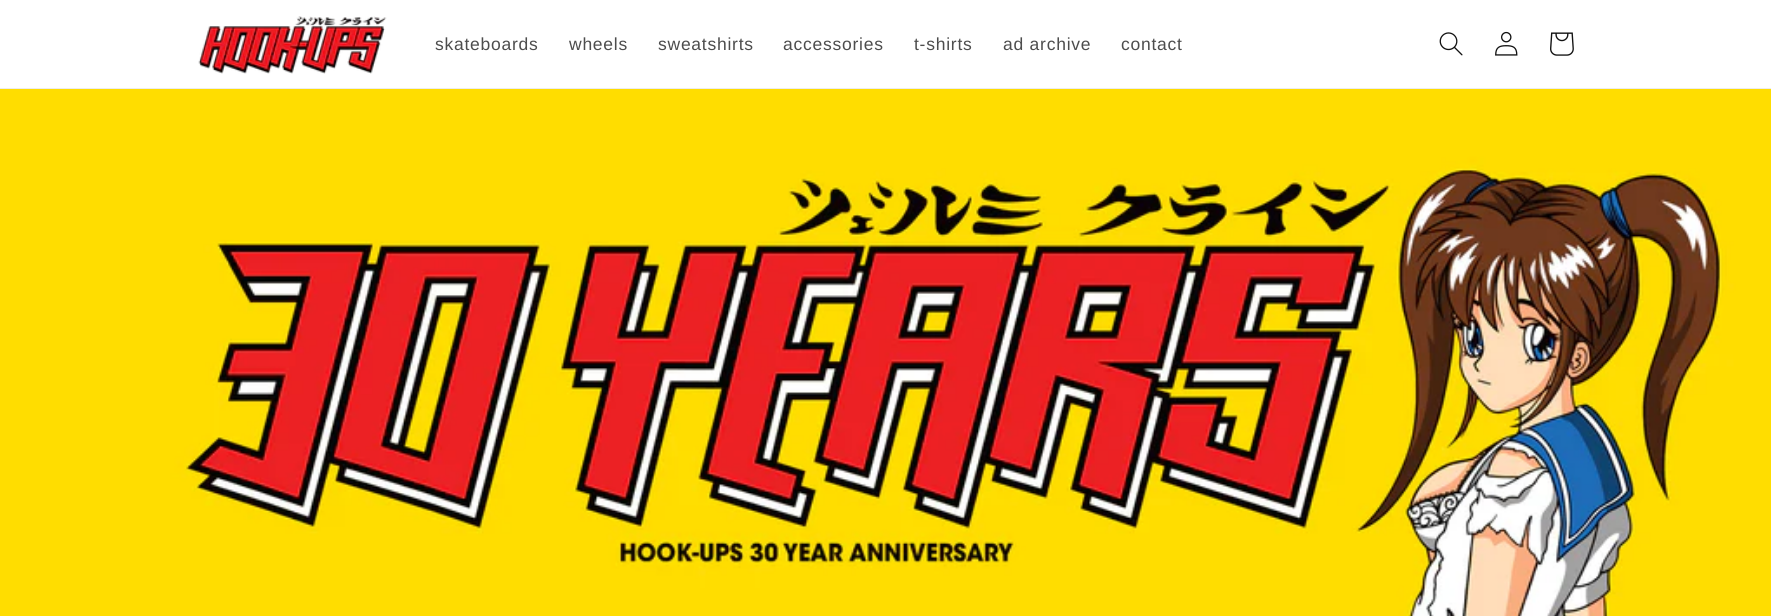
import math
import cairo

surface = cairo.ImageSurface(cairo.FORMAT_RGB24, 1771, 616)
c = cairo.Context(surface)
options = cairo.FontOptions()
options.set_hint_metrics(cairo.HINT_METRICS_OFF)
options.set_hint_style(cairo.HINT_STYLE_NONE)
c.set_font_options(options)
c.set_miter_limit(4)
def C(code):
 c.set_source_rgb(*(v / 255 for v in bytes.fromhex(code[-6:])))
def F(family, size, italic, bold):
 c.select_font_face(family, cairo.FONT_SLANT_ITALIC if italic else cairo.FONT_SLANT_NORMAL, cairo.FONT_WEIGHT_BOLD if bold else cairo.FONT_WEIGHT_NORMAL)
 c.set_font_size(size)
def L(x, y, s, letter, word):
 c.move_to(x, y)
 for ch in s:
  c.show_text(ch)
  c.rel_move_to(letter + word * (ch == ' '), 0)
def R(x, y, w, h):
 c.rectangle(x, y, w, h)
 c.fill()
def I(path, x, y, w, h):
 c.save()
 c.set_source_surface(cairo.ImageSurface.create_from_png(path), x, y)
 c.rectangle(x, y, w, h)
 c.fill()
 c.restore()
C('ffffff')
c.paint()
C('ececec')
R(0,88,1771,1)
I('1.png',198,16,189,58)
F('Liberation Sans',17.5,0,0)
C('4d4d4d')
L(435,50,'skateboards',.75,0)
L(569,50,'wheels',.75,0)
L(658,50,'sweatshirts',.75,0)
L(783,50,'accessories',.75,0)
L(914,50,'t-shirts',.75,0)
L(1003,50,'ad archive',.75,0)
L(1121,50,'contact',.75,0)
I('2.png',1439,32,24,24)
I('3.png',1495,31,23,25)
I('4.png',1550,32,24,24)
I('5.png',0,89,1771,527)
surface.write_to_png('o.png')
